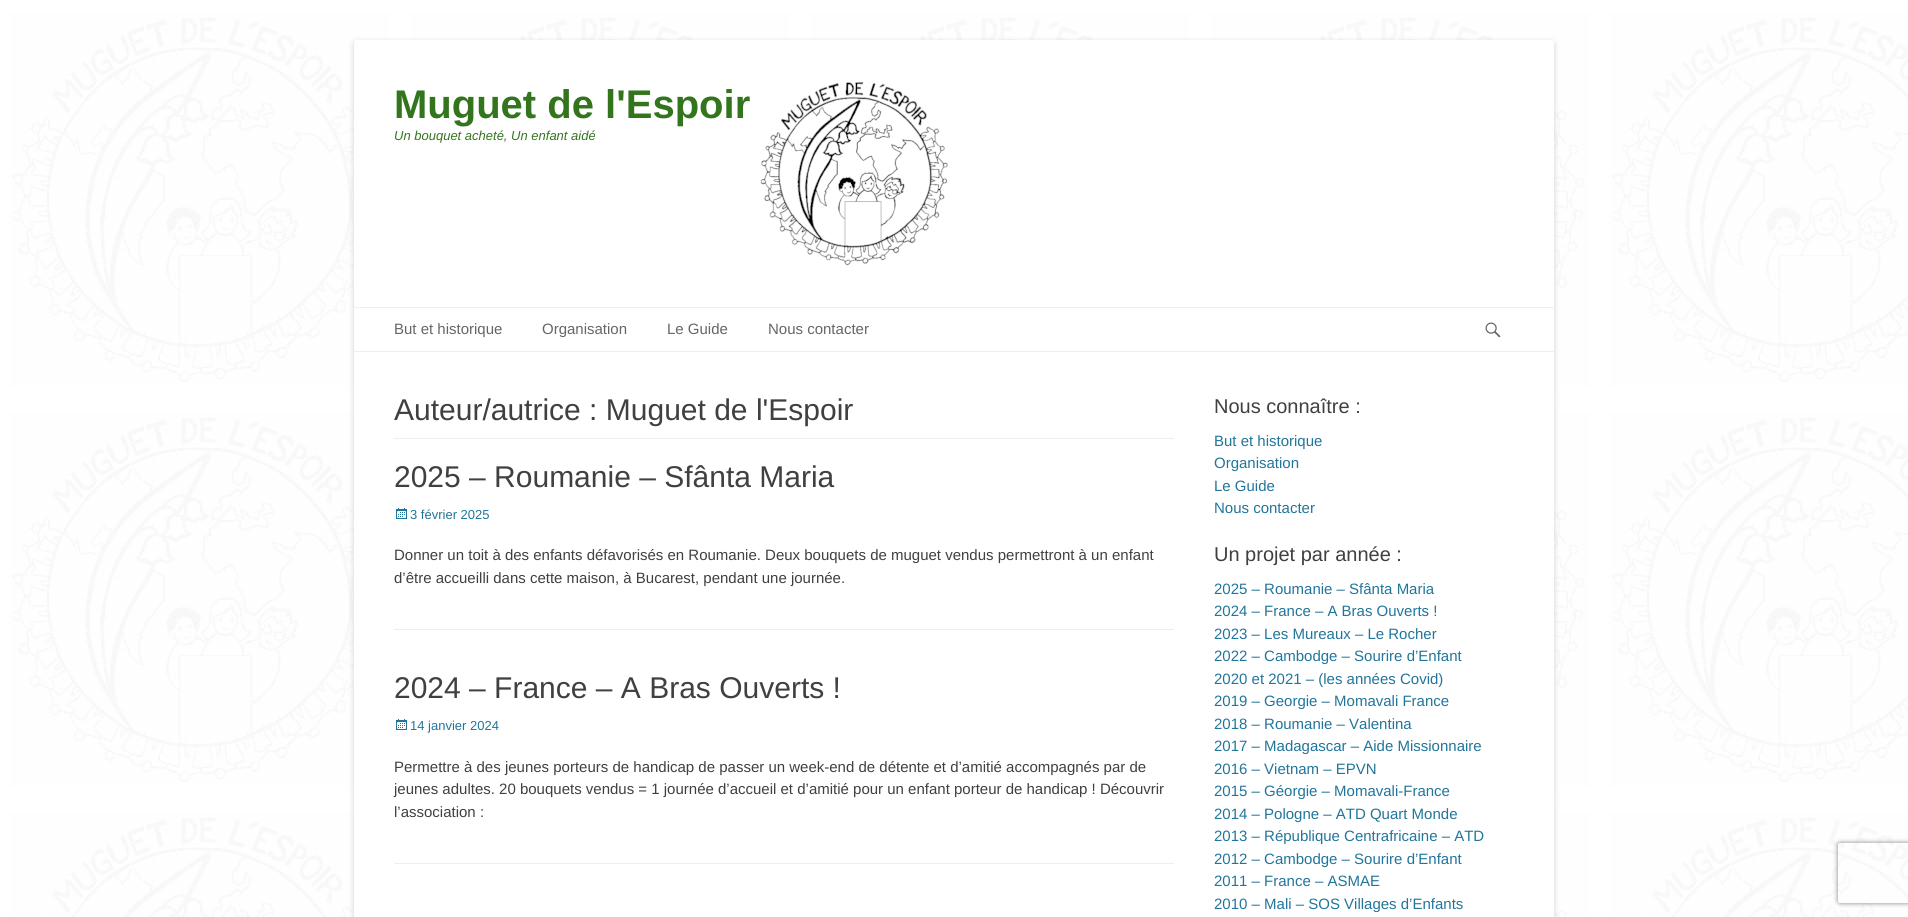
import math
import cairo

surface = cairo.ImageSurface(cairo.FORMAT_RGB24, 1908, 917)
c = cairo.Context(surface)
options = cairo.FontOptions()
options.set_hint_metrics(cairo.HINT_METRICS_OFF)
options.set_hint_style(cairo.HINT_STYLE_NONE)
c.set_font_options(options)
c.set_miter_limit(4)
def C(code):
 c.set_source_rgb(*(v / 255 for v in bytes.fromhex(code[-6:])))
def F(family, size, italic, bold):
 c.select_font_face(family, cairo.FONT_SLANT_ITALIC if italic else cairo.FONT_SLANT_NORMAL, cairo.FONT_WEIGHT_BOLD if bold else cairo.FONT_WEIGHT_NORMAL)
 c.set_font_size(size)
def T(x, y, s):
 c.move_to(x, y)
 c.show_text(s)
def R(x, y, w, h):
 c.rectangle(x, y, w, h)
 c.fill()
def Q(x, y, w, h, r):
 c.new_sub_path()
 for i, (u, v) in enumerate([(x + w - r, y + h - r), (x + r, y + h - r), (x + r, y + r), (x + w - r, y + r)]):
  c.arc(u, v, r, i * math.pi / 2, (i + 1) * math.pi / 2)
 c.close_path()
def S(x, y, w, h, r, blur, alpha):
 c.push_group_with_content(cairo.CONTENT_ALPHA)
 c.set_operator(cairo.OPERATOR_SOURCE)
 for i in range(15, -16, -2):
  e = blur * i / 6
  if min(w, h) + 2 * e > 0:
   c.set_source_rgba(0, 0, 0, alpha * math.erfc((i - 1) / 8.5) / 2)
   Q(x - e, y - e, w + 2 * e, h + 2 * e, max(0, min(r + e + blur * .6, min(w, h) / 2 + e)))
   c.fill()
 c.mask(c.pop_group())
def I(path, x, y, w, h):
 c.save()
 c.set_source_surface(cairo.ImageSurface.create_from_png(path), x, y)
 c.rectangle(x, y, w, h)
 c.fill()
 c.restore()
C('ffffff')
c.paint()
I('1.png',0,0,1908,917)
C('646464')
S(354,42,1200,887,3,3,.3)
C('ffffff')
Q(354,40,1200,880,3)
c.fill()
F('Liberation Sans',40,0,1)
C('33751d')
T(394,118,'Muguet de l\'Espoir')
F('Liberation Sans',13,1,0)
T(394,140,'Un bouquet acheté, Un enfant aidé')
I('2.png',760,81,188,185)
C('eeeeee')
R(354,307,1200,1)
R(354,351,1200,1)
F('Liberation Sans',15,0,0)
C('666666')
T(394,334,'But et historique')
T(542,334,'Organisation')
T(667,334,'Le Guide')
T(768,334,'Nous contacter')
I('3.png',1485,322,16,16)
C('eeeeee')
R(394,438,780,1)
F('Liberation Sans',30,0,0)
C('404040')
T(394,420,'Auteur/autrice : Muguet de l\'Espoir')
C('eeeeee')
R(394,629,780,1)
C('404040')
T(394,487,'2025 – Roumanie – Sfânta Maria')
I('4.png',396,508,11,11)
F('Liberation Sans',13,0,0)
C('21759b')
T(410,519,'3 février 2025')
F('Liberation Sans',15,0,0)
C('404040')
T(394,560,'Donner un toit à des enfants défavorisés en Roumanie. Deux bouquets de muguet vendus permettront à un enfant')
T(394,583,'d’être accueilli dans cette maison, à Bucarest, pendant une journée.')
C('eeeeee')
R(394,863,780,1)
F('Liberation Sans',30,0,0)
C('404040')
T(394,698,'2024 – France – A Bras Ouverts !')
I('4.png',396,719,11,11)
F('Liberation Sans',13,0,0)
C('21759b')
T(410,730,'14 janvier 2024')
F('Liberation Sans',15,0,0)
C('404040')
T(394,772,'Permettre à des jeunes porteurs de handicap de passer un week-end de détente et d’amitié accompagnés par de')
T(394,794,'jeunes adultes. 20 bouquets vendus = 1 journée d’accueil et d’amitié pour un enfant porteur de handicap ! Découvrir')
T(394,817,'l’association :')
F('Liberation Sans',20,0,0)
T(1214,413,'Nous connaître :')
F('Liberation Sans',15,0,0)
C('21759b')
T(1214,446,'But et historique')
T(1214,468,'Organisation')
T(1214,491,'Le Guide')
T(1214,513,'Nous contacter')
F('Liberation Sans',20,0,0)
C('404040')
T(1214,561,'Un projet par année :')
F('Liberation Sans',15,0,0)
C('21759b')
T(1214,594,'2025 – Roumanie – Sfânta Maria')
T(1214,616,'2024 – France – A Bras Ouverts !')
T(1214,639,'2023 – Les Mureaux – Le Rocher')
T(1214,661,'2022 – Cambodge – Sourire d’Enfant')
T(1214,684,'2020 et 2021 – (les années Covid)')
T(1214,706,'2019 – Georgie – Momavali France')
T(1214,729,'2018 – Roumanie – Valentina')
T(1214,751,'2017 – Madagascar – Aide Missionnaire')
T(1214,774,'2016 – Vietnam – EPVN')
T(1214,796,'2015 – Géorgie – Momavali-France')
T(1214,819,'2014 – Pologne – ATD Quart Monde')
T(1214,841,'2013 – République Centrafricaine – ATD')
T(1214,864,'2012 – Cambodge – Sourire d’Enfant')
T(1214,886,'2011 – France – ASMAE')
T(1214,909,'2010 – Mali – SOS Villages d’Enfants')
c.save()
c.set_fill_rule(cairo.FILL_RULE_EVEN_ODD)
c.new_path()
c.move_to(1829,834)
c.line_to(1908,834)
c.line_to(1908,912)
c.line_to(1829,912)
c.close_path()
c.move_to(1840,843)
c.line_to(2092,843)
c.curve_to(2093,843,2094,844,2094,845)
c.line_to(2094,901)
c.curve_to(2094,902,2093,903,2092,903)
c.line_to(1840,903)
c.curve_to(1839,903,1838,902,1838,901)
c.line_to(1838,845)
c.curve_to(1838,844,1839,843,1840,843)
c.close_path()
c.clip()
C('808080')
S(1838,843,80,60,2,2.5,1)
c.restore()
surface.write_to_png('o.png')
